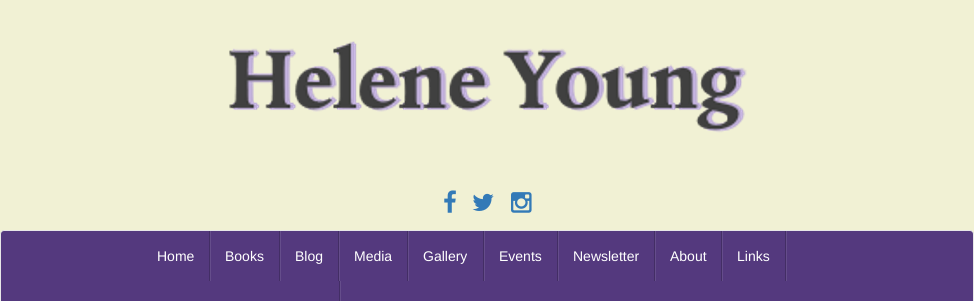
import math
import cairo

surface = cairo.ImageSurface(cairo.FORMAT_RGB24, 974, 301)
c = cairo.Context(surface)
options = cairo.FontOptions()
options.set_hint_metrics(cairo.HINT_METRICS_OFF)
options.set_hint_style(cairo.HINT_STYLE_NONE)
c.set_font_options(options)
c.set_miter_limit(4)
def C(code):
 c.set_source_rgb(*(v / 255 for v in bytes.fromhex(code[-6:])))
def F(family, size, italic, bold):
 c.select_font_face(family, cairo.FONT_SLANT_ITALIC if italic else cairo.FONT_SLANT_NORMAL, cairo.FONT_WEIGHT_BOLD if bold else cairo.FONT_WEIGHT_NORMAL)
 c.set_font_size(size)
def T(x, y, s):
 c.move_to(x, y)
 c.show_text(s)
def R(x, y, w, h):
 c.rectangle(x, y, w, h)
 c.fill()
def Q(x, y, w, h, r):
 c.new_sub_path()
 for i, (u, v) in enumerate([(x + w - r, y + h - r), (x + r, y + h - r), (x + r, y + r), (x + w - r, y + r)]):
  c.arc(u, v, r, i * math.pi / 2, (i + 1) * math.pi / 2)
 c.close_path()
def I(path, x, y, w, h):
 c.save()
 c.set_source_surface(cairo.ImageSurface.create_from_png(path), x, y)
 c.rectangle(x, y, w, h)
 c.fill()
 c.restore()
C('f1f1d4')
c.paint()
I('1.png',229,41,518,92)
I('2.png',444,190,12,23)
I('3.png',472,193,22,18)
I('4.png',511,192,21,21)
C('54397e')
Q(.5,230.5,973,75,3.5)
c.fill_preserve()
C('e7e7e7')
c.set_line_width(1)
c.stroke()
C('654d8b')
R(210,231,1,50)
C('432e65')
R(209,231,1,50)
F('Liberation Sans',14,0,0)
C('ffffff')
T(157,261,'Home')
C('654d8b')
R(280,231,1,50)
C('432e65')
R(279,231,1,50)
C('ffffff')
T(225,261,'Books')
C('654d8b')
R(339,231,1,50)
C('432e65')
R(338,231,1,50)
C('ffffff')
T(295,261,'Blog')
C('654d8b')
R(408,231,1,50)
C('432e65')
R(407,231,1,50)
C('ffffff')
T(354,261,'Media')
C('654d8b')
R(484,231,1,50)
C('432e65')
R(483,231,1,50)
C('ffffff')
T(423,261,'Gallery')
C('654d8b')
R(558,231,1,50)
C('432e65')
R(557,231,1,50)
C('ffffff')
T(499,261,'Events')
C('654d8b')
R(655,231,1,50)
C('432e65')
R(654,231,1,50)
C('ffffff')
T(573,261,'Newsletter')
C('654d8b')
R(722,231,1,50)
C('432e65')
R(721,231,1,50)
C('ffffff')
T(670,261,'About')
C('654d8b')
R(786,231,1,50)
C('432e65')
R(785,231,1,50)
C('ffffff')
T(737,261,'Links')
C('654d8b')
R(340,281,1,20)
C('432e65')
R(339,281,1,20)
surface.write_to_png('o.png')
